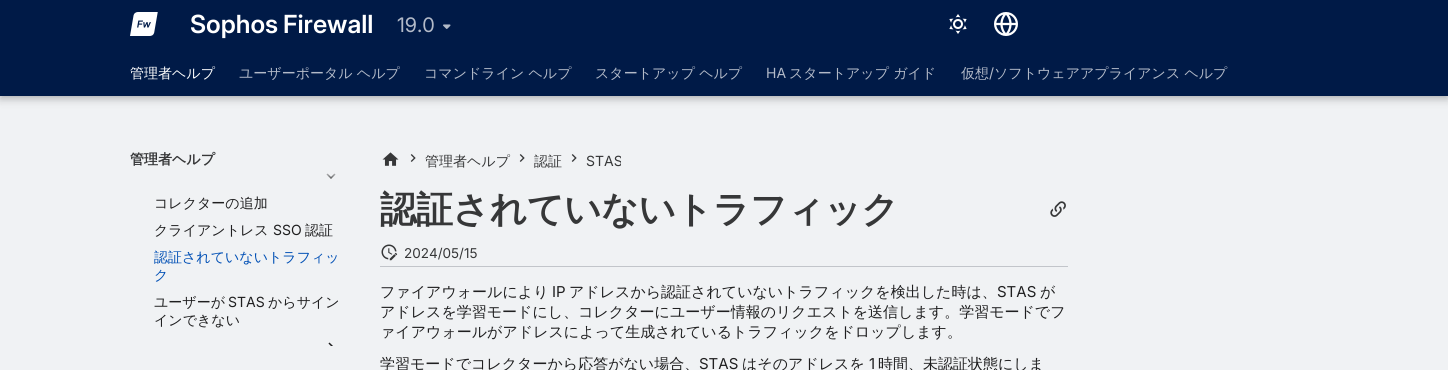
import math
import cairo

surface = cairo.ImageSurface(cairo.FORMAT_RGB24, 1448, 370)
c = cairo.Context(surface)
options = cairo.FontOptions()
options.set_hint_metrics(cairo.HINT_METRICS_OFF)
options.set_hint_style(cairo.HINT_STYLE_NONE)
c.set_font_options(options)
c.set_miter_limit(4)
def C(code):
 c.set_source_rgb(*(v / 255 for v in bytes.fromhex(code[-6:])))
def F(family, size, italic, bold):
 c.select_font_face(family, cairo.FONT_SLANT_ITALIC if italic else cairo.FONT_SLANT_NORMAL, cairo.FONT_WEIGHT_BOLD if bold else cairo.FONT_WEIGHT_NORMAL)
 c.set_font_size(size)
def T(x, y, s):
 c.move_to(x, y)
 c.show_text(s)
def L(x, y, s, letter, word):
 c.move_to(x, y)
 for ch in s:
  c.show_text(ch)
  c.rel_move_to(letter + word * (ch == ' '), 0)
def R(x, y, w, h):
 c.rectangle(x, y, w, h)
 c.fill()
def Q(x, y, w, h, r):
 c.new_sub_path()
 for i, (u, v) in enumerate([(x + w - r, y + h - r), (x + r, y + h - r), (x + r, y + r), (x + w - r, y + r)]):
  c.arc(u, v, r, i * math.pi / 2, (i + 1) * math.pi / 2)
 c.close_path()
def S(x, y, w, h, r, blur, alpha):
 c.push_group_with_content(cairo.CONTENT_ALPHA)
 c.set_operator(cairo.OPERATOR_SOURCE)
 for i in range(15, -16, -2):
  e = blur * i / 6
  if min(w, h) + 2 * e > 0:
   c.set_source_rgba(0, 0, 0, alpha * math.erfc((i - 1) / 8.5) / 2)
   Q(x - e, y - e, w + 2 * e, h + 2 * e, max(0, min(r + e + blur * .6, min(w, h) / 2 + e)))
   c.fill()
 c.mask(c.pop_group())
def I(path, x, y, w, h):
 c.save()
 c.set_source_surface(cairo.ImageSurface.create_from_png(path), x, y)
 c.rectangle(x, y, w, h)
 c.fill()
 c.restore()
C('f0f2f4')
c.paint()
C('000000')
S(0,4,1448,96,0,4,.2)
S(0,0,1448,96,0,2,.1)
C('001a47')
R(0,0,1448,96)
I('1.png',130,12,28,24)
F('Inter SemiBold',25,0,0)
C('ffffff')
L(190,33,'Sophos Firewall',0,-1)
F('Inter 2',20,0,0)
C('b3bac8')
T(397,32,'19.0')
I('2.png',443,24,8,5)
I('3.png',949,14,18,20)
I('4.png',994,12,24,24)
F('WenQuanYi Zen Hei Medium',14,0,0)
C('ffffff')
T(130,78,'管理者ヘルプ')
C('b3bac8')
T(239,78,'ユーザーポータル ヘルプ')
T(424,78,'コマンドライン ヘルプ')
T(595,78,'スタートアップ ヘルプ')
F('Inter',14,0,0)
T(766,78,'HA')
F('WenQuanYi Zen Hei Medium',14,0,0)
T(789,78,'スタートアップ ガイド')
T(961,78,'仮想')
F('Inter',14,0,0)
T(989,78,'/')
F('WenQuanYi Zen Hei Medium',14,0,0)
T(994,78,'ソフトウェアアプライアンス ヘルプ')
I('5.png',326,173,10,6)
c.save()
c.rectangle(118,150,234,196)
c.clip()
C('f0f2f4')
S(122,142,226,34,0,4,1)
c.restore()
F('WenQuanYi Zen Hei',14,0,1)
C('363738')
T(130,164,'管理者ヘルプ')
F('WenQuanYi Zen Hei Medium',14,0,0)
C('1f1f20')
T(154,208,'コレクターの追加')
T(154,235,'クライアントレス')
F('Inter',14,0,0)
T(273,235,'SSO')
F('WenQuanYi Zen Hei Medium',14,0,0)
T(305,235,'認証')
C('004fb5')
T(154,262,'認証されていないトラフィッ')
T(154,280,'ク')
C('1f1f20')
T(154,307,'ユーザーが')
F('Inter',14,0,0)
T(228,307,'STAS')
F('WenQuanYi Zen Hei Medium',14,0,0)
T(268,307,'からサイン')
T(154,325,'インできない')
I('6.png',328,342,5,4)
I('7.png',382,152,17,14)
I('8.png',410,154,6,8)
C('363738')
T(425,166,'管理者ヘルプ')
I('8.png',519,154,6,8)
T(534,166,'認証')
I('8.png',571,154,6,8)
c.save()
c.rectangle(586,150,35,21)
c.clip()
F('Inter',14,0,0)
T(586,166,'STAS')
c.restore()
F('WenQuanYi Zen Hei',36.7,0,1)
L(380,222,'認証されていないトラフィック',-.4,0)
I('9.png',1050,201,16,16)
C('c2c5ca')
R(380,266,688,1)
I('10.png',381,244,17,17)
F('Inter',13.5,0,0)
C('363738')
T(404,258,'2024/05/15')
F('WenQuanYi Zen Hei Medium',15,0,0)
C('1f1f20')
T(380,297,'ファイアウォールにより')
F('Inter',15,0,0)
T(552,297,'IP')
F('WenQuanYi Zen Hei Medium',15,0,0)
T(569,297,'アドレスから認証されていないトラフィックを検出した時は、')
F('Inter',15,0,0)
T(997,297,'STAS')
F('WenQuanYi Zen Hei Medium',15,0,0)
T(1040,297,'が')
T(380,317,'アドレスを学習モードにし、コレクターにユーザー情報のリクエストを送信します。学習モードでフ')
T(380,337,'ァイアウォールがアドレスによって生成されているトラフィックをドロップします。')
T(380,369,'学習モードでコレクターから応答がない場合、')
F('Inter',15,0,0)
T(699,369,'STAS')
F('WenQuanYi Zen Hei Medium',15,0,0)
T(742,369,'はそのアドレスを')
F('Inter',15,0,0)
T(869,369,'1')
F('WenQuanYi Zen Hei Medium',15,0,0)
T(878,369,'時間、未認証状態にしま')
surface.write_to_png('o.png')
